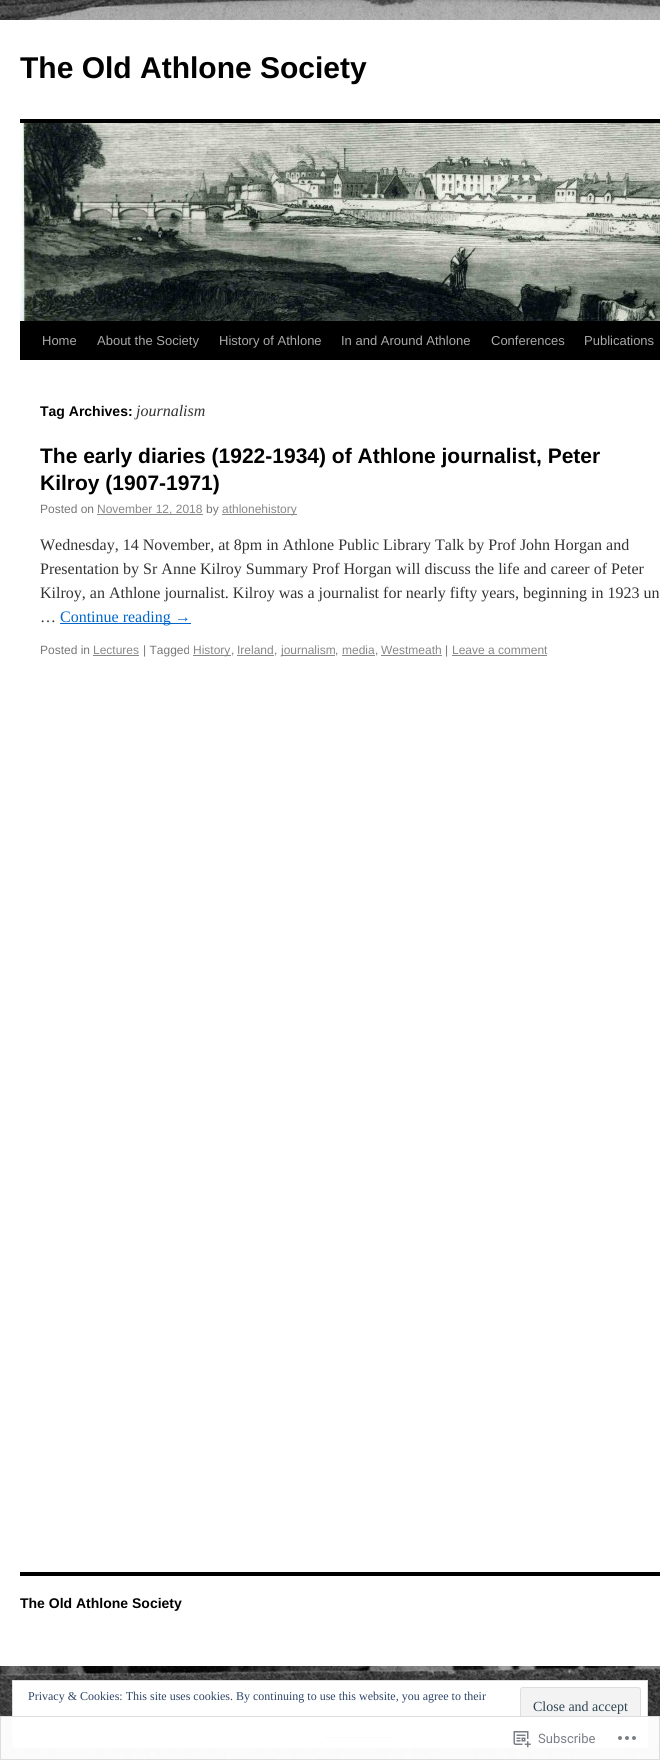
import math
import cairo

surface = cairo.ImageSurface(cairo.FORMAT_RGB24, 660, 1760)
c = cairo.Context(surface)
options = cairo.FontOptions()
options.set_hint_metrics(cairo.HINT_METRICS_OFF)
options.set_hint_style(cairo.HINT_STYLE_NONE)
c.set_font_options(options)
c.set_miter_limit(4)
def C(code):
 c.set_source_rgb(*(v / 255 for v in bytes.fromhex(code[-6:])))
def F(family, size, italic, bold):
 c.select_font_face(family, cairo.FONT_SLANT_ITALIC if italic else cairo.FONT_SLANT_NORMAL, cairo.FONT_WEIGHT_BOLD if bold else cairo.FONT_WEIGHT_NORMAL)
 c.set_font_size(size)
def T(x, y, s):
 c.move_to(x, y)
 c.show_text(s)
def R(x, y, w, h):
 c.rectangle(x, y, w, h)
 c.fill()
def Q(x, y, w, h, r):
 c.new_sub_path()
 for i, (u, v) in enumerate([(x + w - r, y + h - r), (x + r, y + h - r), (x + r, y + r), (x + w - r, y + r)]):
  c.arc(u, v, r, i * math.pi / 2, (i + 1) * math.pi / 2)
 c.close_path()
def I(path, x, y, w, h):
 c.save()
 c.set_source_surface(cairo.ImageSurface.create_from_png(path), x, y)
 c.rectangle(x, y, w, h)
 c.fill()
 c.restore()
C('ffffff')
c.paint()
I('1.png',0,0,660,1760)
C('ffffff')
R(0,20,660,1646)
F('Liberation Sans',30,0,1)
C('000000')
T(20,78,'The Old Athlone Society')
R(20,119,640,4)
R(20,321,640,39)
I('2.png',20,123,640,198)
F('Liberation Sans',13,0,0)
C('aaaaaa')
T(42,345,'Home')
T(97,345,'About the Society')
T(219,345,'History of Athlone')
T(341,345,'In and Around Athlone')
T(491,345,'Conferences')
T(584,345,'Publications')
F('Liberation Sans',14,0,1)
C('000000')
T(40,416,'Tag Archives:')
F('Liberation Serif',16,1,0)
C('333333')
T(136,416,'journalism')
F('Liberation Sans',21,0,1)
C('000000')
T(40,463,'The early diaries (1922-1934) of Athlone journalist, Peter')
T(40,490,'Kilroy (1907-1971)')
F('Liberation Sans',12,0,0)
C('777777')
T(40,513,'Posted on')
C('888888')
R(97,514,106,1)
T(97,513,'November 12, 2018')
C('777777')
T(206,513,'by')
C('888888')
R(222,514,75,1)
T(222,513,'athlonehistory')
F('Liberation Serif',16,0,0)
C('333333')
T(40,550,'Wednesday, 14 November, at 8pm in Athlone Public Library Talk by Prof John Horgan and')
T(40,574,'Presentation by Sr Anne Kilroy Summary Prof Horgan will discuss the life and career of Peter')
T(40,598,'Kilroy, an Athlone journalist. Kilroy was a journalist for nearly fifty years, beginning in 1923 un')
T(40,622,'…')
C('0066cc')
R(60,623,131,1)
T(60,622,'Continue reading →')
F('Liberation Sans',12,0,0)
C('777777')
T(40,654,'Posted in')
C('888888')
T(93,654,'Lectures')
R(93,655,46,1)
C('777777')
T(143,654,'| Tagged')
C('888888')
R(193,655,38,1)
T(193,654,'History')
C('777777')
T(231,654,',')
C('888888')
T(237,654,'Ireland')
C('777777')
T(274,654,',')
C('888888')
R(237,655,37,1)
R(281,655,54,1)
T(281,654,'journalism')
C('777777')
T(335,654,',')
C('888888')
T(342,654,'media')
C('777777')
T(375,654,',')
C('888888')
R(342,655,33,1)
R(381,655,61,1)
T(381,654,'Westmeath')
C('777777')
T(445,654,'|')
C('888888')
T(452,654,'Leave a comment')
R(452,655,95,1)
C('000000')
R(20,1572,640,4)
F('Liberation Sans',14,0,1)
T(20,1608,'The Old Athlone Society')
C('ffffff')
c.rectangle(12.5,1680.5,635,67)
c.fill_preserve()
C('dedede')
c.set_line_width(1)
c.stroke()
F('Liberation Serif',12,0,0)
C('2e4467')
T(28,1700,'Privacy & Cookies: This site uses cookies. By continuing to use this website, you agree to their')
C('f3f3f3')
Q(520.5,1687.5,120,38,2.5)
c.fill_preserve()
C('dedede')
c.stroke()
F('Liberation Serif',14,0,0)
C('2e4453')
T(533,1711,'Close and accept')
C('2e4467')
R(325,1737,68,1)
c.set_source_rgba(1,1,1,0.98)
R(0,1716,660,44)
c.rectangle(.5,1716.5,659,43)
c.set_source_rgba(0.863,0.863,0.871,0.98)
c.stroke()
I('3.png',513,1731,18,17)
F('Roboto',13,0,0)
C('7b7f85')
T(538,1743,'Subscribe')
I('4.png',618,1736,18,4)
surface.write_to_png('o.png')
